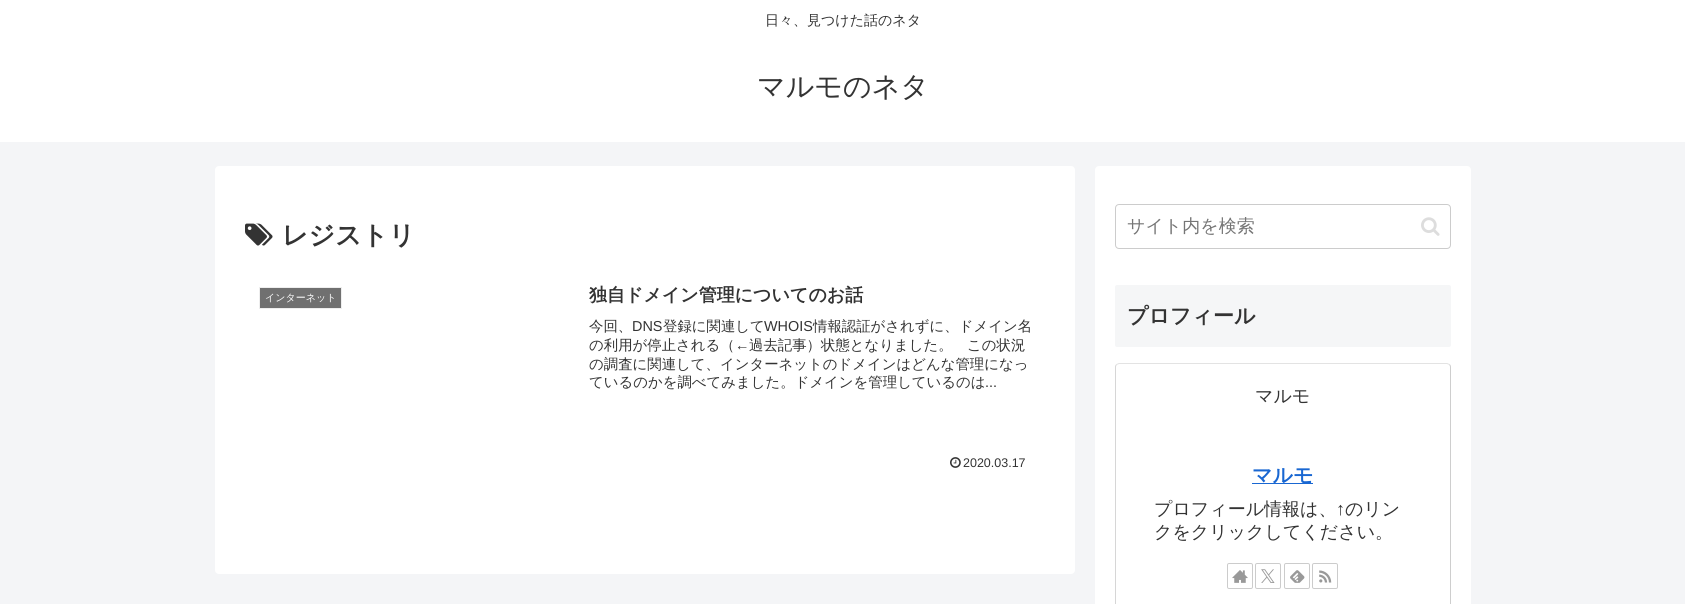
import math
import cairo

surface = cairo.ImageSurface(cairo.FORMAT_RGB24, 1685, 604)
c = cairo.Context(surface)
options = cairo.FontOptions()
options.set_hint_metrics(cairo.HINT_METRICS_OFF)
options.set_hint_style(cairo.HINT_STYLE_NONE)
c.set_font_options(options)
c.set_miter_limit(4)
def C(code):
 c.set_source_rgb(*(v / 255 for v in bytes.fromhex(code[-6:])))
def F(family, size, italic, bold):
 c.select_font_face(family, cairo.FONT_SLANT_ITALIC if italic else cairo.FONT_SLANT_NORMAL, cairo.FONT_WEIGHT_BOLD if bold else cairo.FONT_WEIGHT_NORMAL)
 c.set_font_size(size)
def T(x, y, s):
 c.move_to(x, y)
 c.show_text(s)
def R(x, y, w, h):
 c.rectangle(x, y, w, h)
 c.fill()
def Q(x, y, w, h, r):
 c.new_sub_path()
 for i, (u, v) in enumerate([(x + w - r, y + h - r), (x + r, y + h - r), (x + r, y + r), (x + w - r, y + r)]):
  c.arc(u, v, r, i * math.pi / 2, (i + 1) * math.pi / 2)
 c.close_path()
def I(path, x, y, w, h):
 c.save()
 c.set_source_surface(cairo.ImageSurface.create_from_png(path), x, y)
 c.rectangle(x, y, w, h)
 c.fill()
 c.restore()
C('f4f5f7')
c.paint()
C('ffffff')
R(0,0,1685,142)
F('WenQuanYi Zen Hei Medium',14,0,0)
C('333333')
T(765,25,'日々、見つけた話のネタ')
F('WenQuanYi Zen Hei Medium',28,0,0)
T(757,96,'マルモのネタ')
C('ffffff')
Q(215,166,860,408,4)
c.fill()
I('1.png',245,223,28,23)
F('WenQuanYi Zen Hei',26,0,1)
C('333333')
T(282,244,'レジストリ')
C('707070')
c.rectangle(259.5,287.5,82,21)
c.fill_preserve()
C('eeeeee')
c.set_line_width(1)
c.stroke()
F('WenQuanYi Zen Hei Medium',10,0,0)
C('ffffff')
T(265,301,'インターネット')
F('WenQuanYi Zen Hei',18,0,1)
C('333333')
T(589,301,'独自ドメイン管理についてのお話')
F('WenQuanYi Zen Hei Medium',14.4,0,0)
T(589,331,'今回、')
F('Liberation Sans',14.4,0,0)
T(632,331,'DNS')
F('WenQuanYi Zen Hei Medium',14.4,0,0)
T(663,331,'登録に関連して')
F('Liberation Sans',14.4,0,0)
T(764,331,'WHOIS')
F('WenQuanYi Zen Hei Medium',14.4,0,0)
T(813,331,'情報認証がされずに、ドメイン名')
T(589,350,'の利用が停止される（')
F('Liberation Sans',14.4,0,0)
T(735,350,'←')
F('WenQuanYi Zen Hei Medium',14.4,0,0)
T(749,350,'過去記事）状態となりました。　この状況')
T(589,369,'の調査に関連して、インターネットのドメインはどんな管理になっ')
T(589,387,'ているのかを調べてみました。ドメインを管理しているのは')
F('Liberation Sans',14.4,0,0)
T(985,387,'...')
I('2.png',950,457,11,11)
F('Liberation Sans',12.5,0,0)
T(963,467,'2020.03.17')
C('ffffff')
Q(1095,166,376,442,4)
c.fill()
Q(1115.5,204.5,335,44,3.5)
C('cccccc')
c.stroke()
F('WenQuanYi Zen Hei Medium',18,0,0)
C('757575')
T(1127,232,'サイト内を検索')
I('3.png',1421,217,19,19)
C('f5f6f7')
Q(1115,285,336,62,2)
c.fill()
F('WenQuanYi Zen Hei',21,0,1)
C('333333')
T(1127,323,'プロフィール')
c.new_path()
c.move_to(1116.5,364.5)
c.line_to(1119,363.5)
c.line_to(1447,363.5)
c.line_to(1449.5,364.5)
C('e3e3e3')
c.stroke()
c.new_path()
c.move_to(1449.5,364.5)
c.curve_to(1450,365,1450.5,366,1450.5,367)
c.line_to(1450.5,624)
c.curve_to(1450.5,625,1450,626,1449.5,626.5)
C('cecece')
c.stroke()
c.new_path()
c.move_to(1116.5,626.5)
c.curve_to(1116,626,1115.5,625,1115.5,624)
c.line_to(1115.5,367)
c.curve_to(1115.5,366,1116,365,1116.5,364.5)
C('d6d6d6')
c.stroke()
F('WenQuanYi Zen Hei Medium',18,0,0)
C('333333')
T(1255,402,'マルモ')
C('1967d2')
R(1252,483,61,1)
F('WenQuanYi Zen Hei',20,0,1)
T(1252,482,'マルモ')
F('WenQuanYi Zen Hei Medium',18,0,0)
C('333333')
T(1154,515,'プロフィール情報は、')
F('Liberation Sans',18,0,0)
T(1336,515,'↑')
F('WenQuanYi Zen Hei Medium',18,0,0)
T(1345,515,'のリン')
T(1154,538,'クをクリックしてください。')
Q(1227.5,563.5,25,25,1.5)
C('cccccc')
c.stroke()
I('4.png',1232,570,16,13)
Q(1255.5,563.5,25,25,1.5)
c.stroke()
I('5.png',1261,569,14,14)
Q(1284.5,563.5,25,25,1.5)
c.stroke()
I('6.png',1290,570,15,13)
Q(1312.5,563.5,25,25,1.5)
c.stroke()
I('7.png',1319,570,13,13)
surface.write_to_png('o.png')
